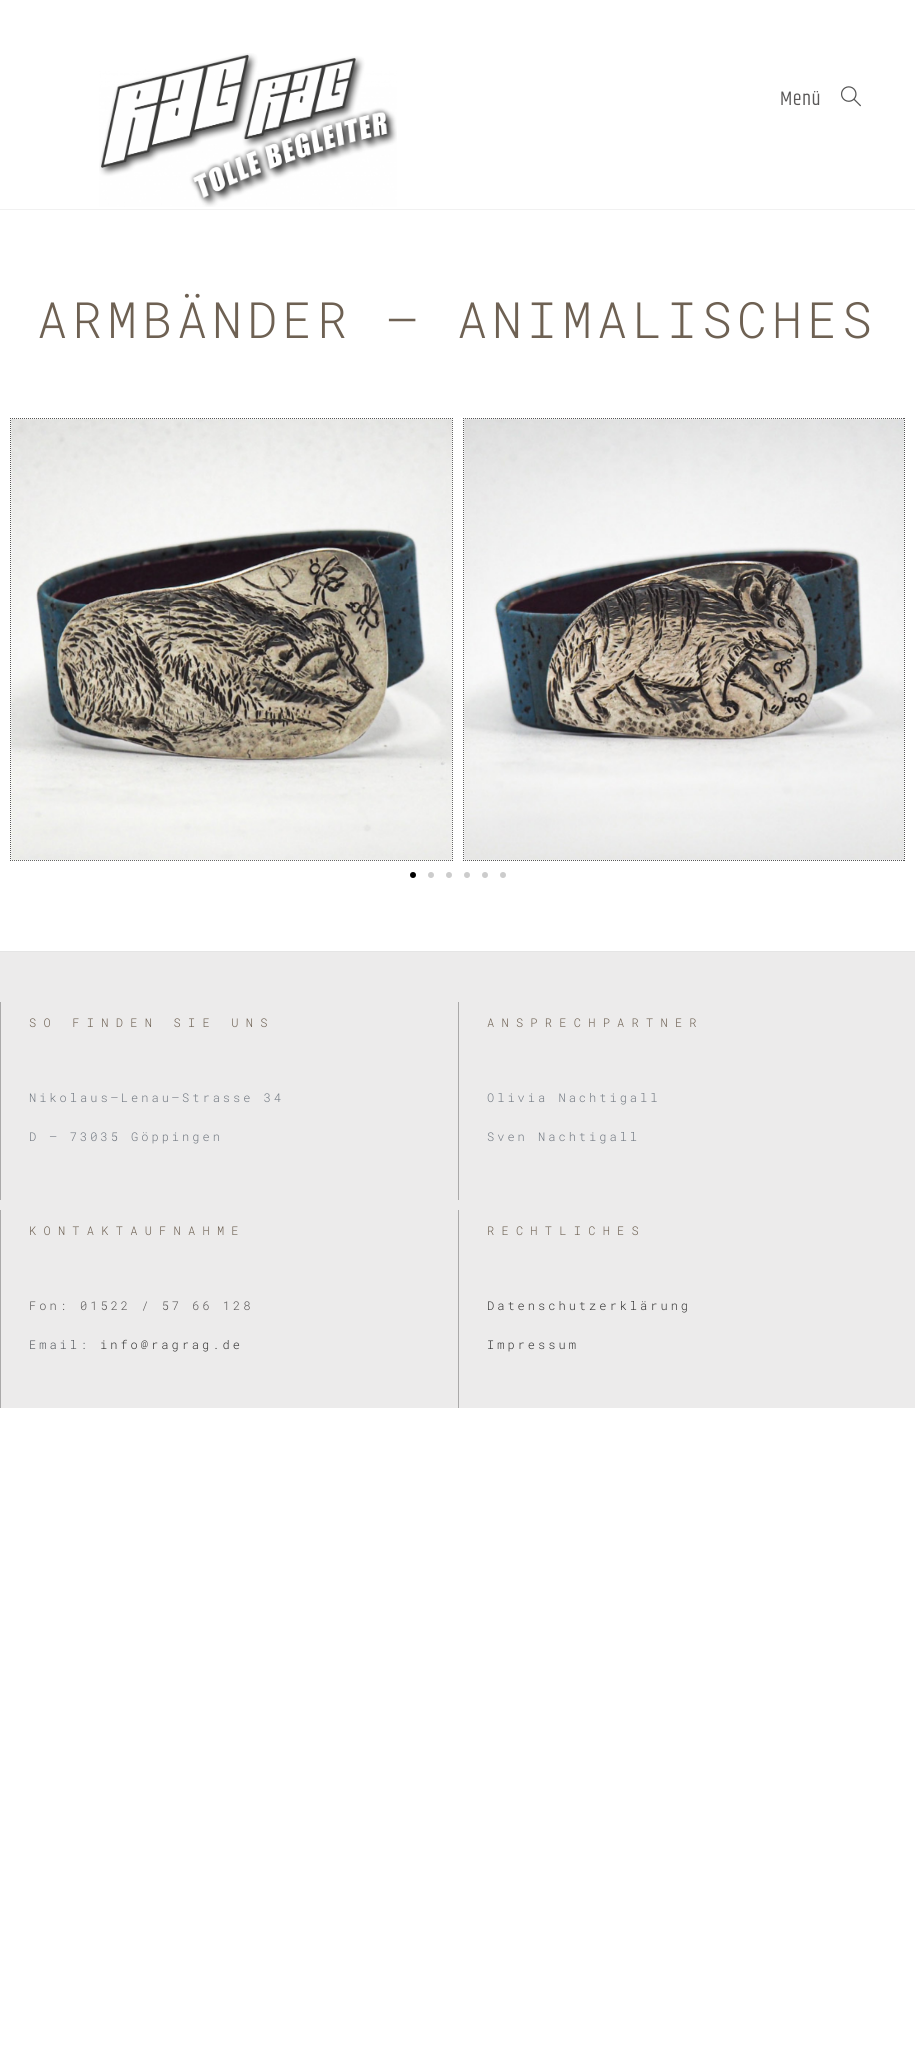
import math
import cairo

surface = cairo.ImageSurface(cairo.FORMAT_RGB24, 915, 2072)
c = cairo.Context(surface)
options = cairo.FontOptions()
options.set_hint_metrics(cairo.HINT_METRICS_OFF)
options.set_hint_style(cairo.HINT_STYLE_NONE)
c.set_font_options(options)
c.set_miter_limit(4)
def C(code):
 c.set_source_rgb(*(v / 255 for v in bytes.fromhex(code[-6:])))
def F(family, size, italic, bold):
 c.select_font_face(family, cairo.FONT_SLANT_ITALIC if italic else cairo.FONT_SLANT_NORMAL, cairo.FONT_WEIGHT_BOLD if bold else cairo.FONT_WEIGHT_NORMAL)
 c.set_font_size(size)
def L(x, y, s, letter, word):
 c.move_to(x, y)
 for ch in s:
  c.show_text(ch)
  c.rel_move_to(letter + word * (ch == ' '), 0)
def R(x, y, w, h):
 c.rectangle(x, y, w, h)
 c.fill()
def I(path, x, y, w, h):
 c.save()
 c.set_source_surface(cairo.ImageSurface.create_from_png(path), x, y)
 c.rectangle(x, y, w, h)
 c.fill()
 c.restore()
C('ffffff')
c.paint()
C('f1f1f1')
R(0,209,915,1)
I('1.png',99,53,298,154)
F('Khand',20,0,0)
C('595757')
L(780,105,'Menü',.5,0)
I('2.png',841,86,20,21)
F('Roboto Mono Light',50,0,0)
C('6e6153')
L(37,338,'ARMBÄNDER – ANIMALISCHES',5,0)
c.new_path()
c.move_to(10,418.5)
c.line_to(453,418.5)
C('4a4a4a')
c.set_line_width(1)
c.set_dash([1,1])
c.stroke()
c.new_path()
c.move_to(452.5,418)
c.line_to(452.5,861)
c.stroke()
c.new_path()
c.move_to(10,860.5)
c.line_to(453,860.5)
c.stroke()
c.new_path()
c.move_to(10.5,418)
c.line_to(10.5,861)
c.stroke()
I('3.png',10,418,443,443)
c.new_path()
c.move_to(463,418.5)
c.line_to(905,418.5)
c.stroke()
c.new_path()
c.move_to(904.5,418)
c.line_to(904.5,861)
c.stroke()
c.new_path()
c.move_to(463,860.5)
c.line_to(905,860.5)
c.stroke()
c.new_path()
c.move_to(463.5,418)
c.line_to(463.5,861)
c.stroke()
I('4.png',463,418,442,443)
C('000000')
c.arc(413,875,3,0,2 * math.pi)
c.fill()
C('cccccc')
c.arc(431,875,3,0,2 * math.pi)
c.fill()
c.arc(449,875,3,0,2 * math.pi)
c.fill()
c.arc(467,875,3,0,2 * math.pi)
c.fill()
c.arc(485,875,3,0,2 * math.pi)
c.fill()
c.arc(503,875,3,0,2 * math.pi)
c.fill()
C('ecebeb')
R(0,952,915,456)
C('e5e5e5')
R(0,951,915,1)
C('aaa9a9')
R(0,1002,1,198)
F('Roboto Mono Light',12,0,0)
C('6e6153')
L(29,1027,'SO FINDEN SIE UNS',7.25,0)
C('727982')
L(29,1102,'Nikolaus–Lenau–Strasse 34',3,0)
L(29,1141,'D – 73035 Göppingen',3,0)
C('aaa9a9')
R(458,1002,1,198)
C('6e6153')
L(487,1027,'ANSPRECHPARTNER',7.25,0)
C('727982')
L(487,1102,'Olivia Nachtigall',3,0)
L(487,1141,'Sven Nachtigall',3,0)
C('aaa9a9')
R(0,1210,1,198)
C('6e6153')
L(29,1235,'KONTAKTAUFNAHME',7.25,0)
C('595757')
L(29,1310,'Fon: 01522 / 57 66 128',3,0)
C('54595f')
L(29,1349,'Email:',3,0)
C('333333')
L(100,1349,'info@ragrag.de',3,0)
C('aaa9a9')
R(458,1210,1,198)
C('6e6153')
L(487,1235,'RECHTLICHES',7.25,0)
C('333333')
L(487,1310,'Datenschutzerklärung',3,0)
L(487,1349,'Impressum',3,0)
surface.write_to_png('o.png')
